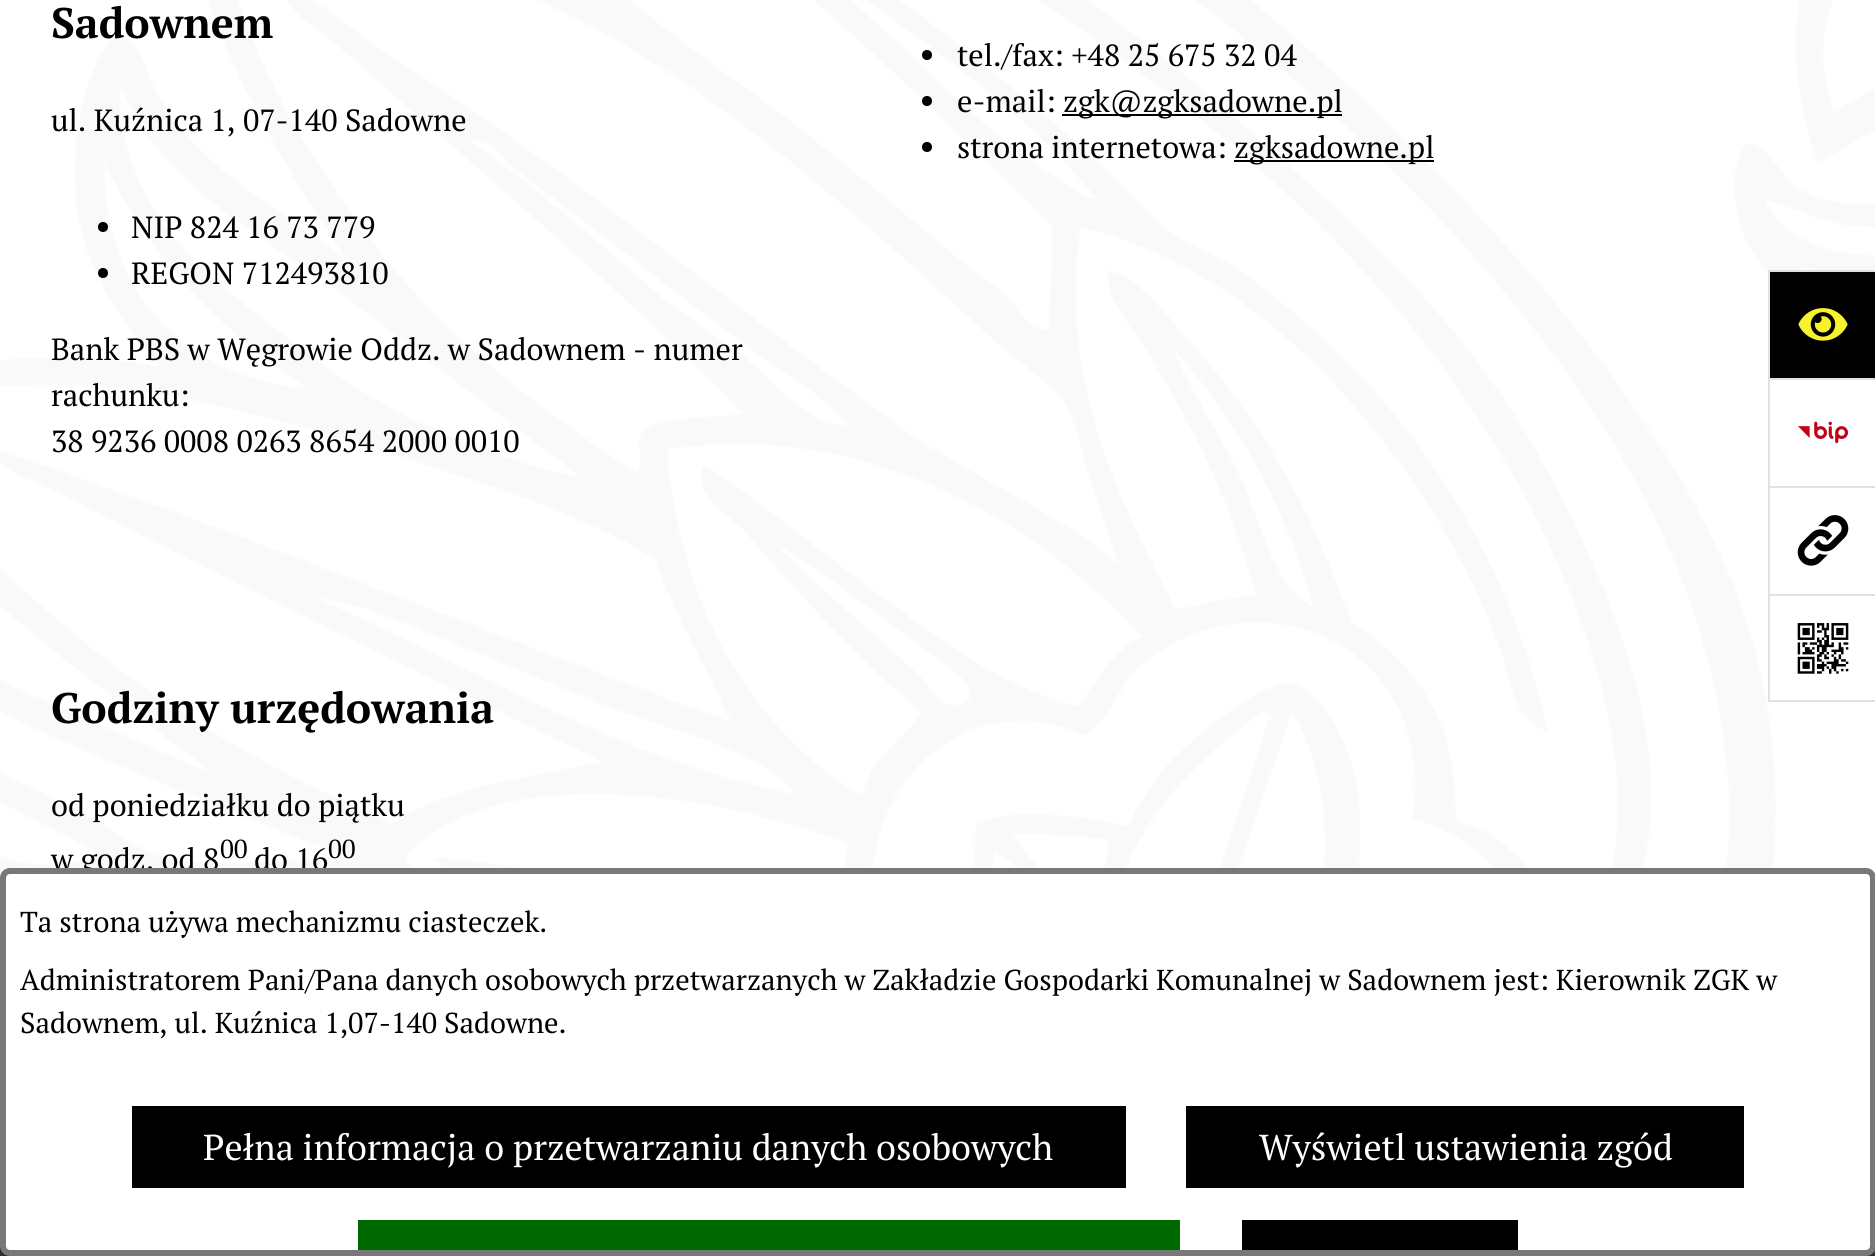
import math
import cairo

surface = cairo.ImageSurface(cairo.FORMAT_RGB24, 1875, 1256)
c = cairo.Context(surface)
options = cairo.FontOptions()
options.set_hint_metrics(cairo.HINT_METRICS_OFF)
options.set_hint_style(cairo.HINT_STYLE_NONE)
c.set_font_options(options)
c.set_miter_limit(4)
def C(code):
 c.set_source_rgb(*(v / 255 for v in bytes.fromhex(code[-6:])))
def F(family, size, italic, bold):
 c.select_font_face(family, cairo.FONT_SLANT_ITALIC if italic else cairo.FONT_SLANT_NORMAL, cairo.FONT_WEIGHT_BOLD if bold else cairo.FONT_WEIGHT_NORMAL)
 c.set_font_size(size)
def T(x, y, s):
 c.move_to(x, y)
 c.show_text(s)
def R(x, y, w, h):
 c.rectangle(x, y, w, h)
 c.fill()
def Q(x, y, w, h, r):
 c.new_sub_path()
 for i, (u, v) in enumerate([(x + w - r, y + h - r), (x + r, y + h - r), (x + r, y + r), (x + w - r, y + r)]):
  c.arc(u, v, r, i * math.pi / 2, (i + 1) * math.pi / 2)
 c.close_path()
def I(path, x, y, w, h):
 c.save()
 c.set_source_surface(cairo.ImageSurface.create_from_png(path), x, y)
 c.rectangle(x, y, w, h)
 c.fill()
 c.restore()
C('ffffff')
c.paint()
I('1.png',0,0,1875,878)
F('PT Serif',42.75,0,1)
C('000000')
T(51,38,'Sadownem')
F('PT Serif',30.6,0,0)
T(51,131,'ul. Kuźnica 1, 07-140 Sadowne')
c.new_path()
c.arc(103,227,5,0,2 * math.pi)
c.fill()
T(131,238,'NIP 824 16 73 779')
c.new_path()
c.arc(103,273,5,0,2 * math.pi)
c.fill()
T(131,284,'REGON 712493810')
T(51,360,'Bank PBS w Węgrowie Oddz. w Sadownem - numer')
T(51,406,'rachunku:')
T(51,452,'38 9236 0008 0263 8654 2000 0010')
c.new_path()
c.arc(927,55,5,0,2 * math.pi)
c.fill()
T(957,66,'tel./fax: +48 25 675 32 04')
c.new_path()
c.arc(927,101,5,0,2 * math.pi)
c.fill()
T(957,112,'e-mail:')
R(1062,114,280,2)
T(1063,112,'zgk@zgksadowne.pl')
c.new_path()
c.arc(927,147,5,0,2 * math.pi)
c.fill()
T(957,158,'strona internetowa:')
R(1234,160,200,2)
T(1234,158,'zgksadowne.pl')
F('PT Serif',42.75,0,1)
T(51,723,'Godziny urzędowania')
F('PT Serif',30.6,0,0)
T(51,816,'od poniedziałku do piątku')
T(51,870,'w godz. od 8')
F('PT Serif',26,0,0)
T(220,858,'00')
F('PT Serif',30.6,0,0)
T(254,870,'do 16')
F('PT Serif',26,0,0)
T(328,858,'00')
C('2e2e2e')
R(0,1246,1875,10)
C('000000')
R(1770,272,105,106)
C('e1e1e1')
R(1768,270,107,2)
R(1768,270,2,108)
I('2.png',1798,308,50,33)
R(1768,378,107,2)
R(1768,378,2,108)
I('3.png',1798,421,51,23)
R(1768,486,107,2)
R(1768,486,2,108)
I('4.png',1797,515,52,51)
R(1768,594,107,2)
R(1768,700,107,2)
R(1768,594,2,108)
I('5.png',1797,623,52,51)
C('ffffff')
Q(3,871,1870,382,7)
c.fill_preserve()
C('787878')
c.set_line_width(6)
c.stroke()
F('PT Serif',28.8,0,0)
C('000000')
T(20,932,'Ta strona używa mechanizmu ciasteczek.')
T(20,990,'Administratorem Pani/Pana danych osobowych przetwarzanych w Zakładzie Gospodarki Komunalnej w Sadownem jest: Kierownik ZGK w')
T(20,1033,'Sadownem, ul. Kuźnica 1,07-140 Sadowne.')
R(132,1106,994,82)
F('PT Serif',36,0,0)
C('ffffff')
T(203,1160,'Pełna informacja o przetwarzaniu danych osobowych')
C('000000')
R(1186,1106,558,82)
C('ffffff')
T(1259,1160,'Wyświetl ustawienia zgód')
C('006800')
R(358,1220,822,30)
C('000000')
R(1242,1220,276,30)
surface.write_to_png('o.png')
